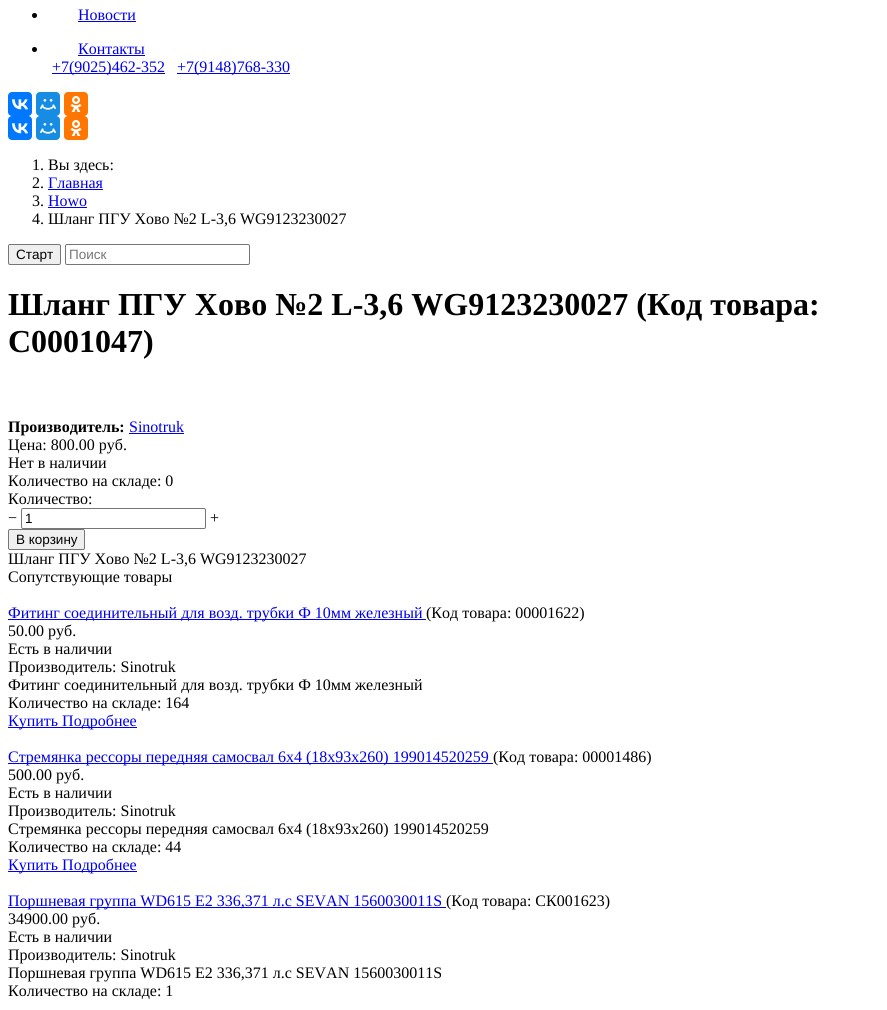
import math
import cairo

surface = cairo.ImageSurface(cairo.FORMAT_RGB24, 887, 1010)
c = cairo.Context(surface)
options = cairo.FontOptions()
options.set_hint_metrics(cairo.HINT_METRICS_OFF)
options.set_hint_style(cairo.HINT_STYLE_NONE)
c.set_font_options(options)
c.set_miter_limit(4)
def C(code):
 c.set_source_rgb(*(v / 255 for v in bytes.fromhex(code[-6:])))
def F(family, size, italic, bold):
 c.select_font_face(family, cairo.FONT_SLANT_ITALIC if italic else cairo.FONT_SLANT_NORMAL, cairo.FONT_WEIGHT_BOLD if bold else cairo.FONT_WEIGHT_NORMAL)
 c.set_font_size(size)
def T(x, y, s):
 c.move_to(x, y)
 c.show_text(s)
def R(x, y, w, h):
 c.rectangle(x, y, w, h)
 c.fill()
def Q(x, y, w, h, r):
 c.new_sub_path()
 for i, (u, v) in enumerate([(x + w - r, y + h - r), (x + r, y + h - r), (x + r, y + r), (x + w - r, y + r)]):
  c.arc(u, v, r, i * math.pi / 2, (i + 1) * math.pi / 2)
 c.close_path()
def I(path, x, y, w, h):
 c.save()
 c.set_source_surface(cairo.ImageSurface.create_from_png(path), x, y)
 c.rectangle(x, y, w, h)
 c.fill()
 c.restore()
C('ffffff')
c.paint()
C('000000')
c.arc(34.5,15.5,2.5,0,2 * math.pi)
c.fill()
F('Liberation Serif',16,0,0)
C('0000ee')
T(78,20,'Новости')
R(78,21,58,1)
C('000000')
c.new_path()
c.arc(34.5,49.5,2.5,0,2 * math.pi)
c.fill()
C('0000ee')
T(78,54,'Контакты')
R(78,55,67,1)
R(52,73,113,1)
T(52,72,'+7(9025)462-352')
R(177,73,113,1)
T(177,72,'+7(9148)768-330')
C('0077ff')
Q(8,92,24,24,4)
c.fill()
I('1.png',12,99,16,11)
C('168de2')
Q(36,92,24,24,4)
c.fill()
I('2.png',40,99,16,11)
C('ff7700')
Q(64,92,24,24,4)
c.fill()
I('3.png',70,96,12,16)
C('0077ff')
Q(8,116,24,24,4)
c.fill()
I('1.png',12,123,16,11)
C('168de2')
Q(36,116,24,24,4)
c.fill()
I('2.png',40,123,16,11)
C('ff7700')
Q(64,116,24,24,4)
c.fill()
I('3.png',70,120,12,16)
C('000000')
T(32,170,'1. Вы здесь:')
T(32,188,'2.')
C('0000ee')
T(48,188,'Главная')
R(48,189,55,1)
C('000000')
T(32,206,'3.')
C('0000ee')
T(48,206,'Howo')
R(48,207,39,1)
C('000000')
T(32,224,'4. Шланг ПГУ Хово №2 L-3,6 WG9123230027')
C('efefef')
Q(8.5,244.5,52,20,1.5)
c.fill_preserve()
C('767676')
c.set_line_width(1)
c.stroke()
F('Liberation Sans',13.5,0,0)
C('000000')
T(16,259,'Старт')
Q(65.5,244.5,184,20,1.5)
C('767676')
c.stroke()
C('757575')
T(69,259,'Поиск')
F('Liberation Serif',32,0,1)
C('000000')
T(8,315,'Шланг ПГУ Хово №2 L-3,6 WG9123230027 (Код товара:')
T(8,352,'С0001047)')
F('Liberation Serif',16,0,1)
T(8,432,'Производитель:')
F('Liberation Serif',16,0,0)
C('0000ee')
T(129,432,'Sinotruk')
R(129,433,55,1)
C('000000')
T(8,450,'Цена: 800.00 руб.')
T(8,468,'Нет в наличии')
T(8,486,'Количество на складе: 0')
T(8,504,'Количество:')
T(8,523,'−')
Q(21.5,508.5,184,20,1.5)
C('767676')
c.stroke()
F('Liberation Sans',13.5,0,0)
C('000000')
T(25,523,'1')
F('Liberation Serif',16,0,0)
T(210,523,'+')
C('efefef')
Q(8.5,529.5,76,20,1.5)
c.fill_preserve()
C('767676')
c.stroke()
F('Liberation Sans',13.5,0,0)
C('000000')
T(16,544,'В корзину')
F('Liberation Serif',16,0,0)
T(8,564,'Шланг ПГУ Хово №2 L-3,6 WG9123230027')
T(8,582,'Сопутствующие товары')
C('0000ee')
R(8,619,418,1)
T(8,618,'Фитинг соединительный для возд. трубки Ф 10мм железный')
C('000000')
T(426,618,'(Код товара: 00001622)')
T(8,636,'50.00 руб.')
T(8,654,'Есть в наличии')
T(8,672,'Производитель: Sinotruk')
T(8,690,'Фитинг соединительный для возд. трубки Ф 10мм железный')
T(8,708,'Количество на складе: 164')
C('0000ee')
R(8,727,129,1)
T(8,726,'Купить Подробнее')
R(8,763,485,1)
T(8,762,'Стремянка рессоры передняя самосвал 6х4 (18х93х260) 199014520259')
C('000000')
T(493,762,'(Код товара: 00001486)')
T(8,780,'500.00 руб.')
T(8,798,'Есть в наличии')
T(8,816,'Производитель: Sinotruk')
T(8,834,'Стремянка рессоры передняя самосвал 6х4 (18х93х260) 199014520259')
T(8,852,'Количество на складе: 44')
C('0000ee')
R(8,871,129,1)
T(8,870,'Купить Подробнее')
R(8,907,438,1)
T(8,906,'Поршневая группа WD615 Е2 336,371 л.с SEVAN 1560030011S')
C('000000')
T(446,906,'(Код товара: СК001623)')
T(8,924,'34900.00 руб.')
T(8,942,'Есть в наличии')
T(8,960,'Производитель: Sinotruk')
T(8,978,'Поршневая группа WD615 Е2 336,371 л.с SEVAN 1560030011S')
T(8,996,'Количество на складе: 1')
surface.write_to_png('o.png')
